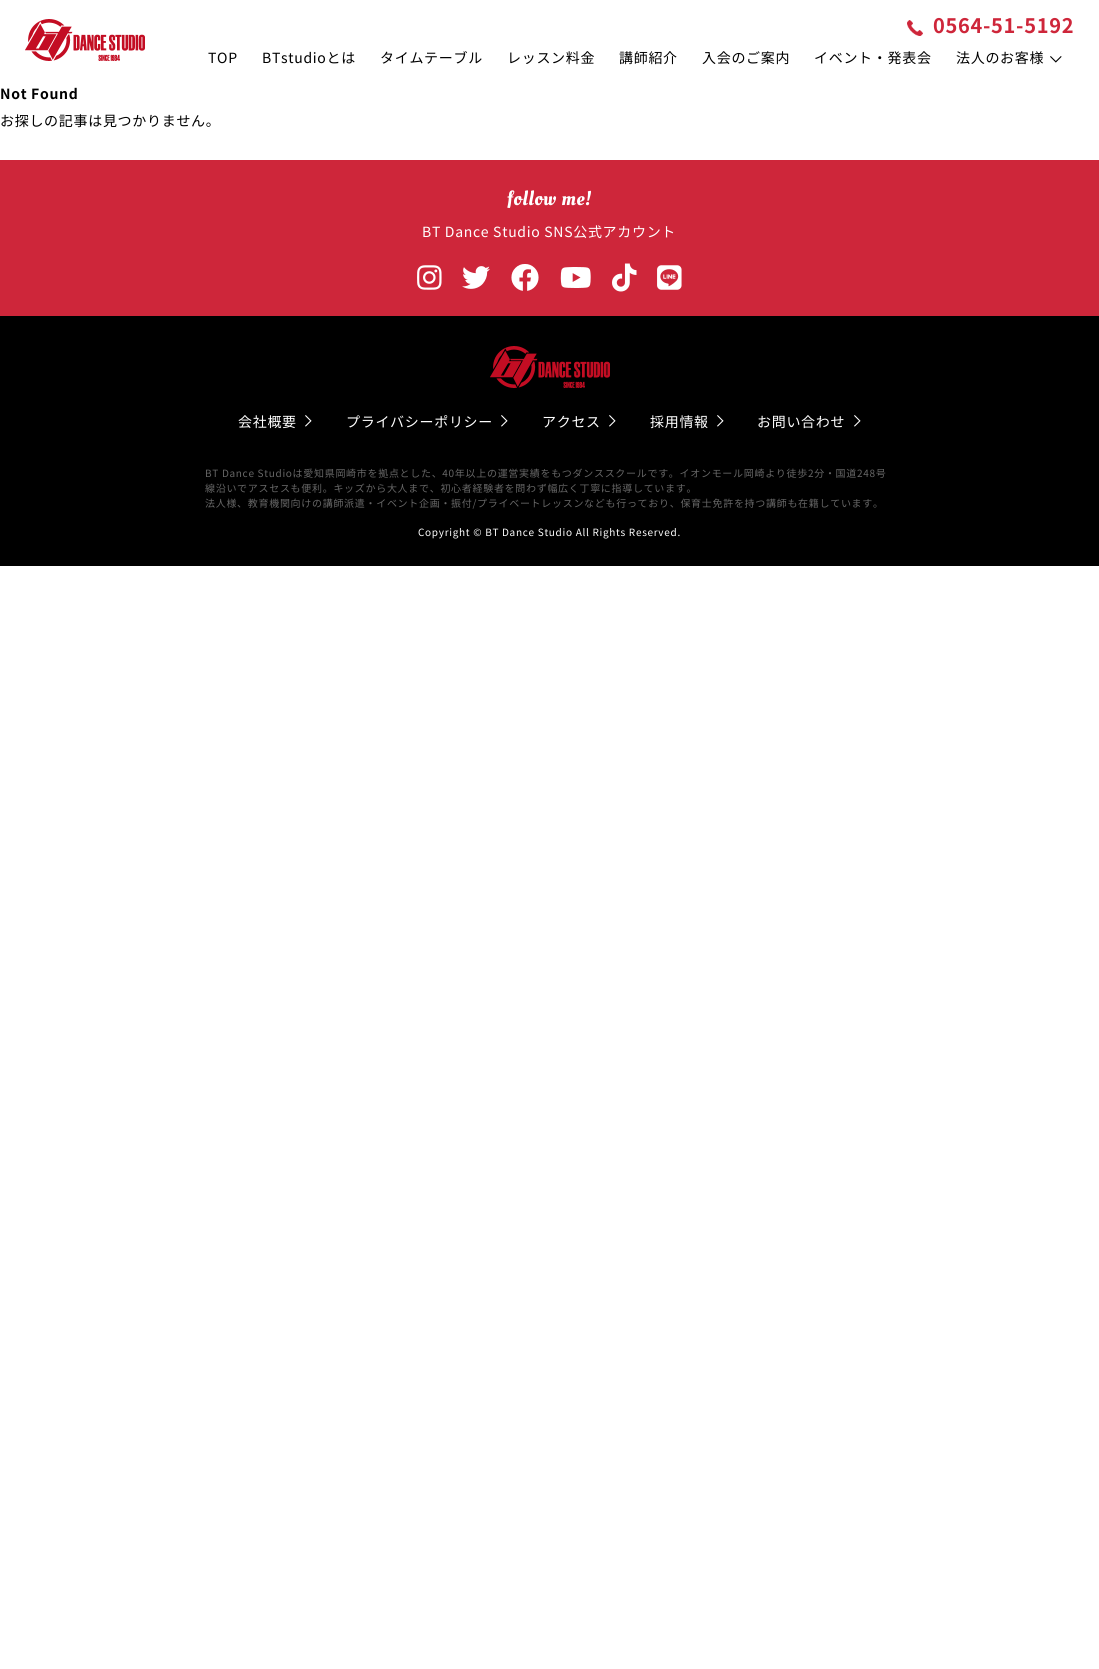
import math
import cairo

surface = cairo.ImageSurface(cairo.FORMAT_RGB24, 1099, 1669)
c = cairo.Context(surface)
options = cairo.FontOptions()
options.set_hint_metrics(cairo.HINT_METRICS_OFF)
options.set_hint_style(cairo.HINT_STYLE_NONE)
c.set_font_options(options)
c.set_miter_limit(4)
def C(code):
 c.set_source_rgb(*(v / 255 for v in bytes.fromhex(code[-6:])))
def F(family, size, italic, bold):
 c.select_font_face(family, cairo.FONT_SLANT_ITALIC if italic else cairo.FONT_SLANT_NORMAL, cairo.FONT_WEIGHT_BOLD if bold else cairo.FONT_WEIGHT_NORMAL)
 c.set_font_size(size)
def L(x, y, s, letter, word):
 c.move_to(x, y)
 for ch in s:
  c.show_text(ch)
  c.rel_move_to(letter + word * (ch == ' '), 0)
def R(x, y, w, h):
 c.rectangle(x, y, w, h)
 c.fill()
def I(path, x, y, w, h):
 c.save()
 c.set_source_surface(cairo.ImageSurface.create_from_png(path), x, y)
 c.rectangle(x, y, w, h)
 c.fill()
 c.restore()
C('ffffff')
c.paint()
I('1.png',25,19,120,42)
I('2.png',907,20,16,16)
F('Noto Sans JP',20,0,1)
C('ce263a')
L(933,33,'0564-51-5192',.7,0)
F('Noto Sans JP',14,0,0)
C('000000')
L(208,63,'TOP',.7,0)
L(262,63,'BTstudioとは',.7,0)
L(380,63,'タイムテーブル',.7,0)
L(507,63,'レッスン料金',.7,0)
L(619,63,'講師紹介',.7,0)
L(702,63,'入会のご案内',.7,0)
L(814,63,'イベント・発表会',.7,0)
L(956,63,'法人のお客様',.7,0)
I('3.png',1050,56,12,7)
F('Noto Sans JP',14,0,1)
L(0,99,'Not Found',.7,0)
F('Noto Sans JP',14,0,0)
L(0,126,'お探しの記事は見つかりません。',.7,0)
R(0,316,1099,250)
C('ce263a')
R(0,160,1099,156)
F('Oleo Script Swash Caps',20,0,0)
C('ffffff')
L(507,205,'follow me!',.7,0)
F('Noto Sans JP',14,0,0)
L(422,237,'BT Dance Studio SNS公式アカウント',.7,0)
I('4.png',417,265,25,25)
I('5.png',462,266,28,23)
I('6.png',511,264,28,27)
I('7.png',560,267,31,21)
I('8.png',612,263,25,29)
I('9.png',657,265,25,25)
I('10.png',490,346,120,42)
I('11.png',305,415,7,12)
L(238,427,'会社概要',.7,0)
I('11.png',501,415,7,12)
L(346,427,'プライバシーポリシー',.7,0)
I('11.png',609,415,7,12)
L(542,427,'アクセス',.7,0)
I('11.png',717,415,7,12)
L(650,427,'採用情報',.7,0)
I('11.png',854,415,7,12)
L(757,427,'お問い合わせ',.7,0)
F('Noto Sans JP',10,0,0)
C('666666')
L(205,477,'BT Dance Studioは愛知県岡崎市を拠点とした、40年以上の運営実績をもつダンススクールです。イオンモール岡崎より徒歩2分・国道248号',.7,0)
L(205,492,'線沿いでアスセスも便利。キッズから大人まで、初心者経験者を問わず幅広く丁寧に指導しています。',.7,0)
L(205,507,'法人様、教育機関向けの講師派遣・イベント企画・振付/プライベートレッスンなども行っており、保育士免許を持つ講師も在籍しています。',.7,0)
C('ffffff')
L(418,536,'Copyright © BT Dance Studio All Rights Reserved.',.7,0)
surface.write_to_png('o.png')
